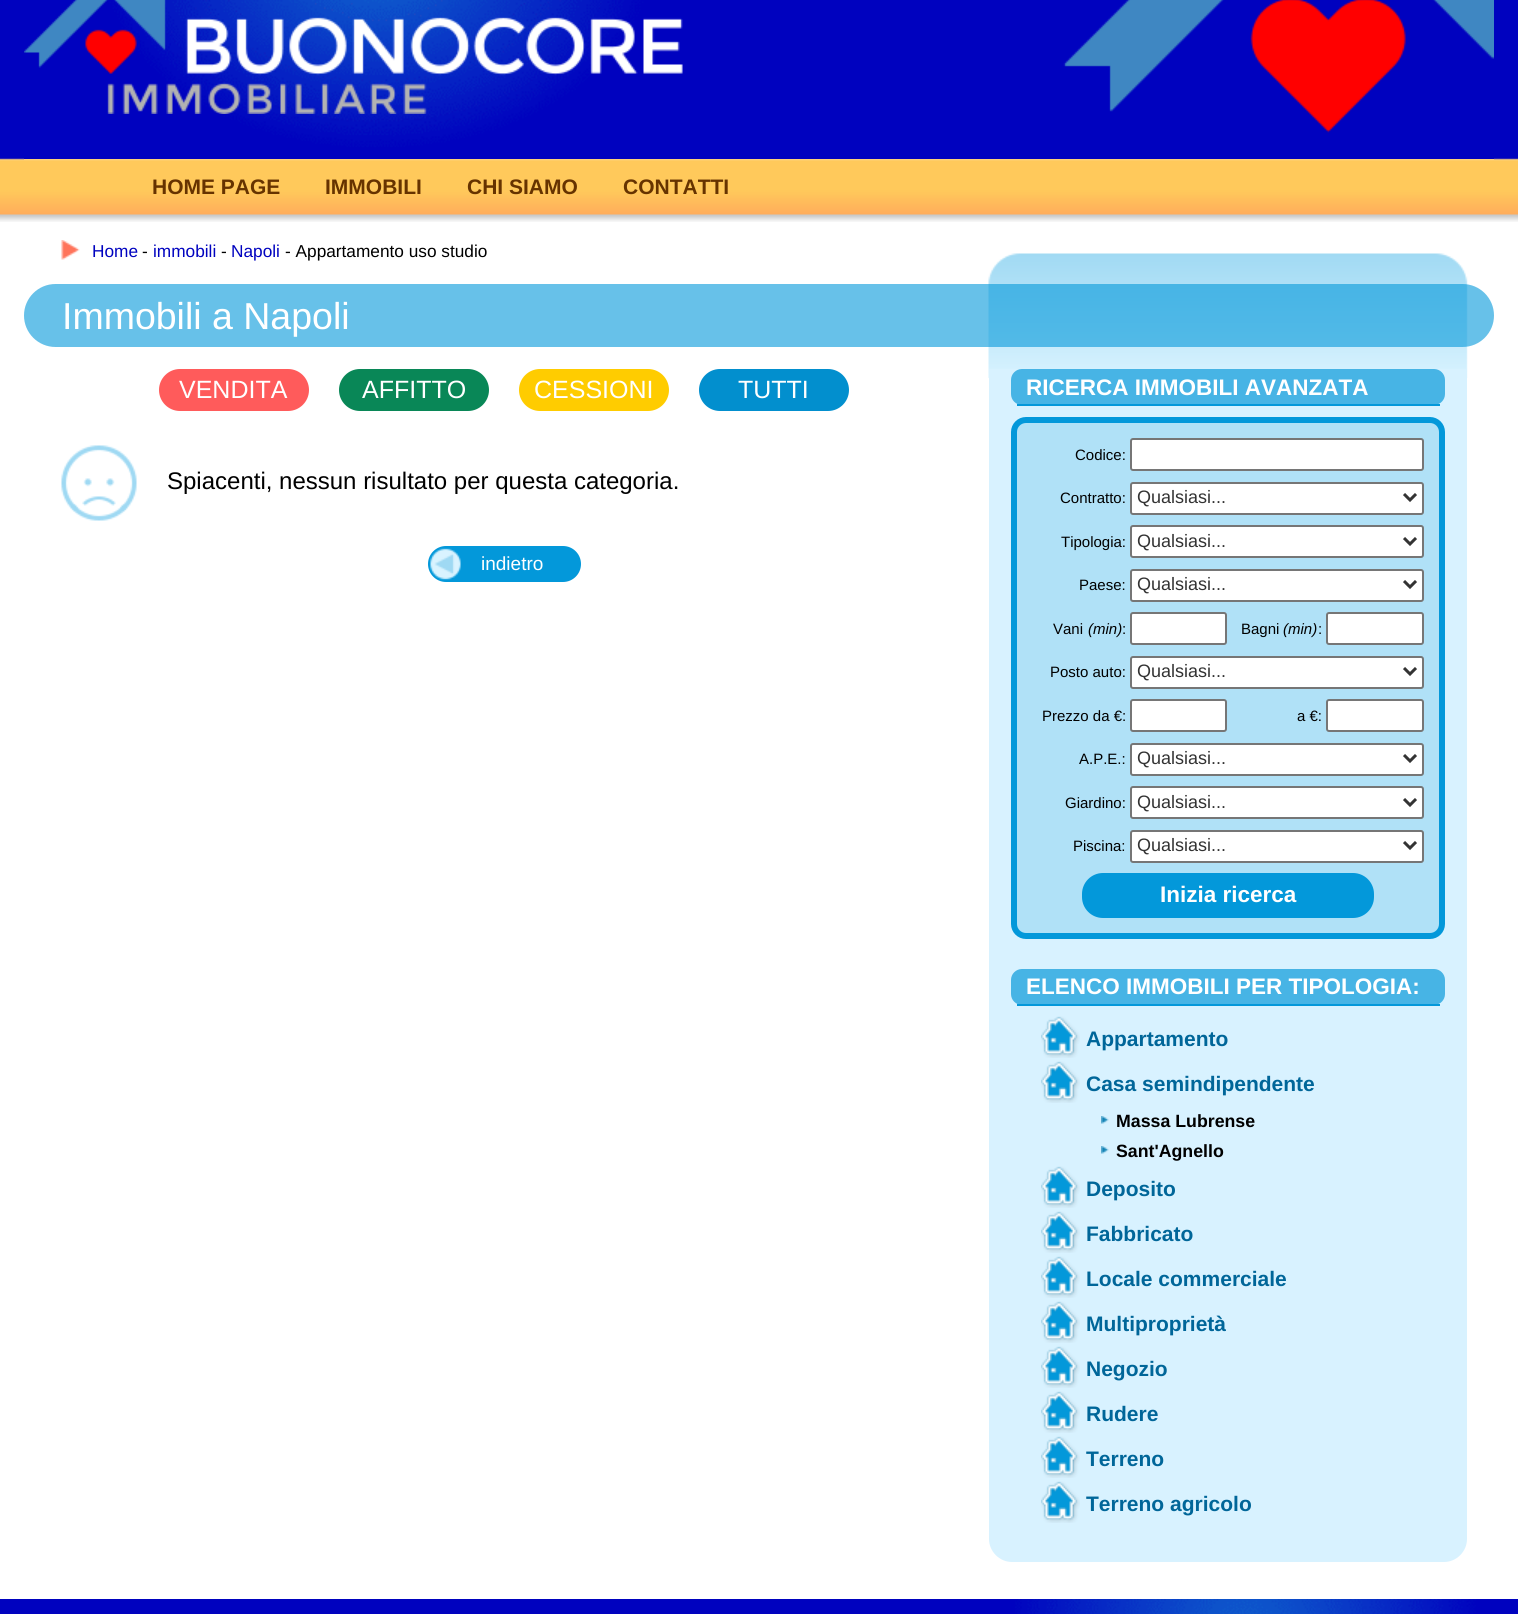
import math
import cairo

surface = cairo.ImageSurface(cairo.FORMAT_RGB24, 1518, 1614)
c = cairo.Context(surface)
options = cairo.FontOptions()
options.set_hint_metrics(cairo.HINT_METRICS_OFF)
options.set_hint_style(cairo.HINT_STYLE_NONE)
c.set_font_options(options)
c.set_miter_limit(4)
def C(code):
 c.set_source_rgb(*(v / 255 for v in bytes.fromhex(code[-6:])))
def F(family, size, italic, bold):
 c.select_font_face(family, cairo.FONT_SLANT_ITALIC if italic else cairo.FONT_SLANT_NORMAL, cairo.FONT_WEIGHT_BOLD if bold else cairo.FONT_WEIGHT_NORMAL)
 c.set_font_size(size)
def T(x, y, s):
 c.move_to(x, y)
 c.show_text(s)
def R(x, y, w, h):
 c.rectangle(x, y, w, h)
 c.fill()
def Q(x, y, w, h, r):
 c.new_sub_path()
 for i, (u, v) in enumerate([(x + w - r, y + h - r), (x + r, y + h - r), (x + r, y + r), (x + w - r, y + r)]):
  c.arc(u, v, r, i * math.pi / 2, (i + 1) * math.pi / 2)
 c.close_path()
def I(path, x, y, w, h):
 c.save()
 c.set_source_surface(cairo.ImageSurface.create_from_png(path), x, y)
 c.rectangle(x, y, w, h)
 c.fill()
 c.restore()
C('ffffff')
c.paint()
I('1.png',0,0,1518,222)
I('2.png',24,0,1470,159)
I('3.png',24,0,659,114)
C('fed278')
R(24,159,1470,1)
F('Liberation Sans',21,0,1)
C('663300')
T(152,194,'HOME PAGE')
T(325,194,'IMMOBILI')
T(467,194,'CHI SIAMO')
T(623,194,'CONTATTI')
I('4.png',988,253,480,125)
I('5.png',61,240,19,20)
F('Liberation Sans',17.25,0,0)
C('0002bf')
T(92,257,'Home')
C('000000')
T(142,257,'-')
C('0002bf')
T(153,257,'immobili')
C('000000')
T(221,257,'-')
C('0002bf')
T(231,257,'Napoli')
C('000000')
T(285,257,'- Appartamento uso studio')
c.set_source_rgba(0.012,0.596,0.855,0.6)
Q(24,284,1470,63,31.5)
c.fill()
F('Liberation Sans',37.5,0,0)
C('ffffff')
T(62,329,'Immobili a Napoli')
C('ff5b5b')
Q(159,369,150,42,21)
c.fill()
F('Liberation Sans',25,0,0)
C('ffffff')
T(179,398,'VENDITA')
C('098757')
Q(339,369,150,42,21)
c.fill()
C('ffffff')
T(362,398,'AFFITTO')
C('ffcc00')
Q(519,369,150,42,21)
c.fill()
C('ffffff')
T(534,398,'CESSIONI')
C('028fce')
Q(699,369,150,42,21)
c.fill()
C('ffffff')
T(738,398,'TUTTI')
I('6.png',61,445,76,76)
F('Liberation Sans',24,0,0)
C('000000')
T(167,489,'Spiacenti, nessun risultato per questa categoria.')
C('0398da')
Q(428,546,153,36,18)
c.fill()
I('7.png',430,548,31,32)
F('Liberation Sans',19,0,0)
C('ffffff')
T(481,570,'indietro')
C('d8f2ff')
c.new_path()
c.move_to(989,369)
c.line_to(1467,369)
c.line_to(1467,1539)
c.curve_to(1467,1551.5,1456.5,1562,1444,1562)
c.line_to(1012,1562)
c.curve_to(999.5,1562,989,1551.5,989,1539)
c.close_path()
c.fill()
C('47b4e5')
Q(1011,369,434,36,11)
c.fill()
C('0398da')
R(1017,404,423,2)
F('Liberation Sans',22.5,0,1)
C('ffffff')
T(1026,395,'RICERCA IMMOBILI AVANZATA')
C('b0e1f7')
Q(1014,420,428,516,12)
c.fill_preserve()
C('0398da')
c.set_line_width(6)
c.stroke()
F('Liberation Sans',15,0,0)
C('000000')
T(1075,460,'Codice:')
C('ffffff')
Q(1131,439,292,31,2)
c.fill_preserve()
C('767676')
c.set_line_width(2)
c.stroke()
C('000000')
T(1060,503,'Contratto:')
C('ffffff')
Q(1131,483,292,31,2)
c.fill_preserve()
C('767676')
c.stroke()
c.new_path()
c.move_to(1404,494)
c.line_to(1410,500)
c.line_to(1416,494)
C('333333')
c.set_line_width(3)
c.stroke()
F('Liberation Sans',18,0,0)
T(1137,503,'Qualsiasi...')
F('Liberation Sans',15,0,0)
C('000000')
T(1061,547,'Tipologia:')
C('ffffff')
Q(1131,526,292,31,2)
c.fill_preserve()
C('767676')
c.set_line_width(2)
c.stroke()
c.new_path()
c.move_to(1404,538)
c.line_to(1410,544)
c.line_to(1416,538)
C('333333')
c.set_line_width(3)
c.stroke()
F('Liberation Sans',18,0,0)
T(1137,547,'Qualsiasi...')
F('Liberation Sans',15,0,0)
C('000000')
T(1079,590,'Paese:')
C('ffffff')
Q(1131,570,292,31,2)
c.fill_preserve()
C('767676')
c.set_line_width(2)
c.stroke()
c.new_path()
c.move_to(1404,581)
c.line_to(1410,587)
c.line_to(1416,581)
C('333333')
c.set_line_width(3)
c.stroke()
F('Liberation Sans',18,0,0)
T(1137,590,'Qualsiasi...')
F('Liberation Sans',15,0,0)
C('000000')
T(1053,634,'Vani')
F('Liberation Sans',15,1,0)
T(1088,634,'(min)')
F('Liberation Sans',15,0,0)
T(1122,634,':')
C('ffffff')
Q(1131,613,95,31,2)
c.fill_preserve()
C('767676')
c.set_line_width(2)
c.stroke()
C('000000')
T(1241,634,'Bagni')
F('Liberation Sans',15,1,0)
T(1283,634,'(min)')
F('Liberation Sans',15,0,0)
T(1318,634,':')
C('ffffff')
Q(1327,613,96,31,2)
c.fill_preserve()
C('767676')
c.stroke()
C('000000')
T(1050,677,'Posto auto:')
C('ffffff')
Q(1131,657,292,31,2)
c.fill_preserve()
C('767676')
c.stroke()
c.new_path()
c.move_to(1404,668)
c.line_to(1410,674)
c.line_to(1416,668)
C('333333')
c.set_line_width(3)
c.stroke()
F('Liberation Sans',18,0,0)
T(1137,677,'Qualsiasi...')
F('Liberation Sans',15,0,0)
C('000000')
T(1042,721,'Prezzo da €:')
C('ffffff')
Q(1131,700,95,31,2)
c.fill_preserve()
C('767676')
c.set_line_width(2)
c.stroke()
C('000000')
T(1297,721,'a €:')
C('ffffff')
Q(1327,700,96,31,2)
c.fill_preserve()
C('767676')
c.stroke()
C('000000')
T(1079,764,'A.P.E.:')
C('ffffff')
Q(1131,744,292,31,2)
c.fill_preserve()
C('767676')
c.stroke()
c.new_path()
c.move_to(1404,755)
c.line_to(1410,761)
c.line_to(1416,755)
C('333333')
c.set_line_width(3)
c.stroke()
F('Liberation Sans',18,0,0)
T(1137,764,'Qualsiasi...')
F('Liberation Sans',15,0,0)
C('000000')
T(1065,808,'Giardino:')
C('ffffff')
Q(1131,787,292,31,2)
c.fill_preserve()
C('767676')
c.set_line_width(2)
c.stroke()
c.new_path()
c.move_to(1404,799)
c.line_to(1410,805)
c.line_to(1416,799)
C('333333')
c.set_line_width(3)
c.stroke()
F('Liberation Sans',18,0,0)
T(1137,808,'Qualsiasi...')
F('Liberation Sans',15,0,0)
C('000000')
T(1073,851,'Piscina:')
C('ffffff')
Q(1131,831,292,31,2)
c.fill_preserve()
C('767676')
c.set_line_width(2)
c.stroke()
c.new_path()
c.move_to(1404,842)
c.line_to(1410,848)
c.line_to(1416,842)
C('333333')
c.set_line_width(3)
c.stroke()
F('Liberation Sans',18,0,0)
T(1137,851,'Qualsiasi...')
C('0398da')
Q(1082,873,292,45,21)
c.fill()
F('Liberation Sans',22.5,0,1)
C('ffffff')
T(1160,902,'Inizia ricerca')
C('47b4e5')
Q(1011,969,434,36,11)
c.fill()
C('0398da')
R(1017,1004,423,2)
C('ffffff')
T(1026,994,'ELENCO IMMOBILI PER TIPOLOGIA:')
I('8.png',1041,1016,39,42)
F('Liberation Sans',21,0,1)
C('006699')
T(1086,1046,'Appartamento')
I('8.png',1041,1061,39,42)
T(1086,1091,'Casa semindipendente')
I('9.png',1101,1116,8,8)
F('Liberation Sans',17.75,0,1)
C('000000')
T(1116,1127,'Massa Lubrense')
I('9.png',1101,1146,8,8)
T(1116,1157,'Sant\'Agnello')
I('8.png',1041,1166,39,42)
F('Liberation Sans',21,0,1)
C('006699')
T(1086,1196,'Deposito')
I('8.png',1041,1211,39,42)
T(1086,1241,'Fabbricato')
I('8.png',1041,1256,39,42)
T(1086,1286,'Locale commerciale')
I('8.png',1041,1301,39,42)
T(1086,1331,'Multiproprietà')
I('8.png',1041,1346,39,42)
T(1086,1376,'Negozio')
I('8.png',1041,1391,39,42)
T(1086,1421,'Rudere')
I('8.png',1041,1436,39,42)
T(1086,1466,'Terreno')
I('8.png',1041,1481,39,42)
T(1086,1511,'Terreno agricolo')
C('0002bf')
R(0,1599,1518,15)
I('10.png',1015,1599,461,15)
surface.write_to_png('o.png')
